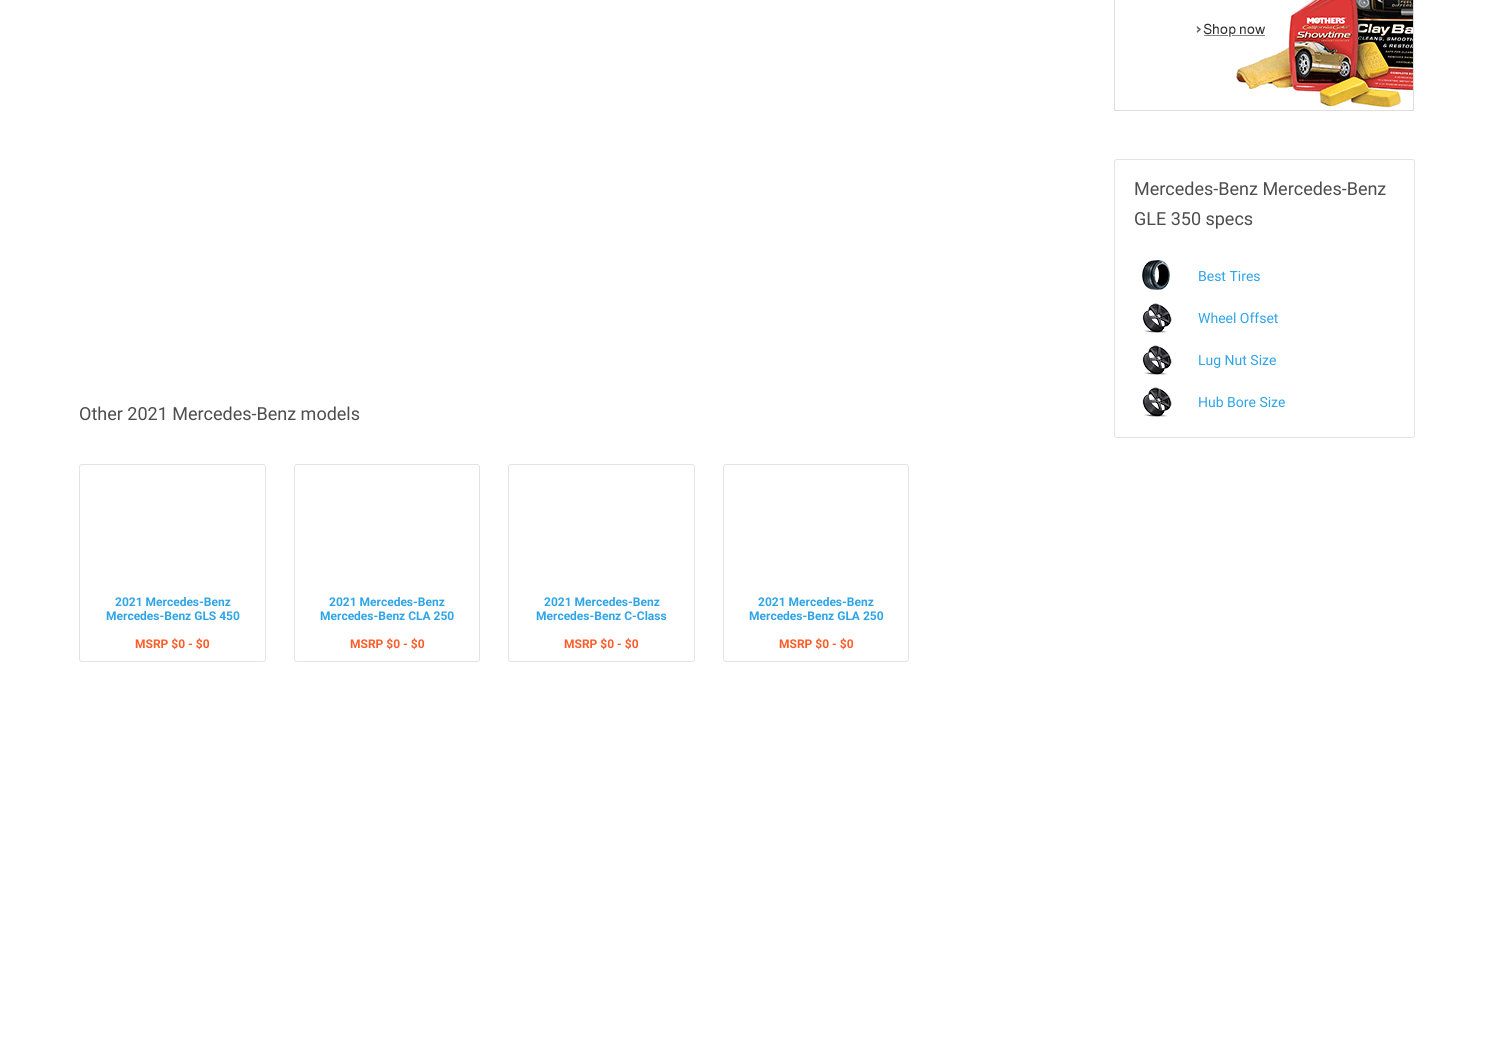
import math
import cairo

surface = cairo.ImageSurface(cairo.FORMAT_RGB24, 1488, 1056)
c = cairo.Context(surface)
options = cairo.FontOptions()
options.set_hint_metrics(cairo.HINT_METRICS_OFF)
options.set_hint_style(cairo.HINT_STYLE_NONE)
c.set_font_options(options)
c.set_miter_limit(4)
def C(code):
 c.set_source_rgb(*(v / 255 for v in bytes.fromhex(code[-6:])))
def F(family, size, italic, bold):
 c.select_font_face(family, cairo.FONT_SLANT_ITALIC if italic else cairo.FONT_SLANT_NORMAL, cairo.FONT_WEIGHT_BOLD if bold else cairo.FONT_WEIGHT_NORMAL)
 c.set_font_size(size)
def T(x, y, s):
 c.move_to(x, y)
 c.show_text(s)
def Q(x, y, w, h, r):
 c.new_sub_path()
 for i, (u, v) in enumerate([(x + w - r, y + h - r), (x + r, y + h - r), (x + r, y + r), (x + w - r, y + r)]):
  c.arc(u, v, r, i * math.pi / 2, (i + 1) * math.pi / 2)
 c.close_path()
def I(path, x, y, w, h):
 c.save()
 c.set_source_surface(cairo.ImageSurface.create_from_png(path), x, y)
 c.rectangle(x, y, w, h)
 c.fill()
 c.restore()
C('ffffff')
c.paint()
I('1.png',1114,0,300,111)
Q(1114.5,159.5,300,278,2.5)
C('e3e3e3')
c.set_line_width(1)
c.stroke()
F('Roboto',18,0,0)
C('4d4d4d')
T(1134,195,'Mercedes-Benz Mercedes-Benz')
T(1134,225,'GLE 350 specs')
I('2.png',1142,260,28,30)
F('Roboto',14,0,0)
C('2fa4e7')
T(1198,281,'Best Tires')
I('3.png',1142,303,30,30)
T(1198,323,'Wheel Offset')
I('3.png',1142,345,30,30)
T(1198,365,'Lug Nut Size')
I('3.png',1142,387,30,30)
T(1198,407,'Hub Bore Size')
F('Roboto',18,0,0)
C('4d4d4d')
T(79,420,'Other 2021 Mercedes-Benz models')
Q(79.5,464.5,186,197,2.5)
C('e3e3e3')
c.stroke()
F('Roboto',12,0,1)
C('2fa4e7')
T(115,606,'2021 Mercedes-Benz')
T(106,620,'Mercedes-Benz GLS 450')
C('ff5c28')
T(135,648,'MSRP $0 - $0')
Q(294.5,464.5,185,197,2.5)
C('e3e3e3')
c.stroke()
C('2fa4e7')
T(329,606,'2021 Mercedes-Benz')
T(320,620,'Mercedes-Benz CLA 250')
C('ff5c28')
T(350,648,'MSRP $0 - $0')
Q(508.5,464.5,186,197,2.5)
C('e3e3e3')
c.stroke()
C('2fa4e7')
T(544,606,'2021 Mercedes-Benz')
T(536,620,'Mercedes-Benz C-Class')
C('ff5c28')
T(564,648,'MSRP $0 - $0')
Q(723.5,464.5,185,197,2.5)
C('e3e3e3')
c.stroke()
C('2fa4e7')
T(758,606,'2021 Mercedes-Benz')
T(749,620,'Mercedes-Benz GLA 250')
C('ff5c28')
T(779,648,'MSRP $0 - $0')
surface.write_to_png('o.png')
